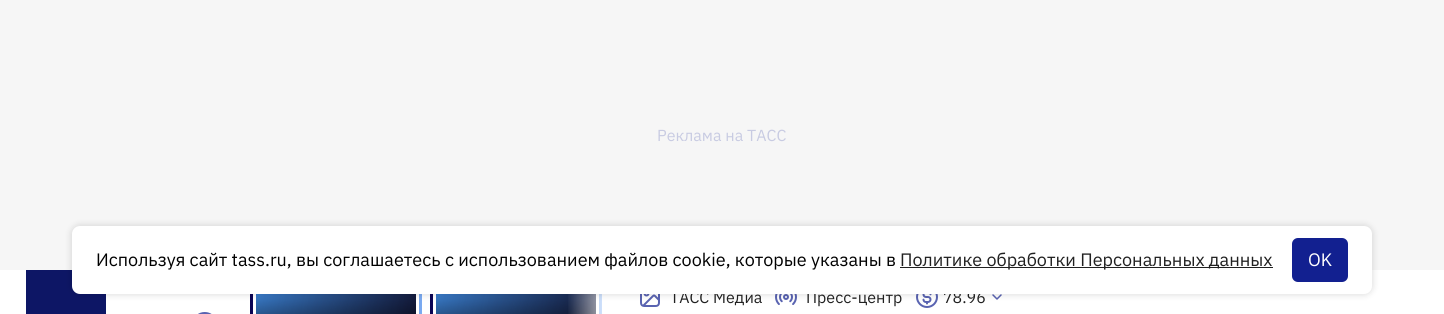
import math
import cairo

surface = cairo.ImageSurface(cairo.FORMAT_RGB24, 1444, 314)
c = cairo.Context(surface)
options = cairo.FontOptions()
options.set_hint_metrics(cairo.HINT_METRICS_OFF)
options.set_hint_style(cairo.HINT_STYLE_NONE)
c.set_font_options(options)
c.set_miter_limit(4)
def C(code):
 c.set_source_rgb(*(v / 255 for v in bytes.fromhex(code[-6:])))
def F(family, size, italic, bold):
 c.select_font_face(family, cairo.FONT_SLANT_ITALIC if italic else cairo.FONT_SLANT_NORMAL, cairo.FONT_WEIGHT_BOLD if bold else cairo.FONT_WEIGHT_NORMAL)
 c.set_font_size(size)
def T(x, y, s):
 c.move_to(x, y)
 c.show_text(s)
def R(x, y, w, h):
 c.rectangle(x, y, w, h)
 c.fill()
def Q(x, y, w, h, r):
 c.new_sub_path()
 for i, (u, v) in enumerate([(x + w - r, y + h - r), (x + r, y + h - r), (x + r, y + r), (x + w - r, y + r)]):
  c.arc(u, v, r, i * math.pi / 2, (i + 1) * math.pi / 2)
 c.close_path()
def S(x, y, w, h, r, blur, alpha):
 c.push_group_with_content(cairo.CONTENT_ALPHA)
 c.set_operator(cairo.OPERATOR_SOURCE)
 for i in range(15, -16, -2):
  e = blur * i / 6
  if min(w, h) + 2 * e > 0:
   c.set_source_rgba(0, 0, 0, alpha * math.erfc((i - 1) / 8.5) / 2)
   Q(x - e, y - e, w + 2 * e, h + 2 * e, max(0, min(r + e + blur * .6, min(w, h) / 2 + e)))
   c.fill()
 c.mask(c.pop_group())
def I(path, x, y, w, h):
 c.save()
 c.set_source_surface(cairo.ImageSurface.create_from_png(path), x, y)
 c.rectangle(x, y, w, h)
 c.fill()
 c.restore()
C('ffffff')
c.paint()
C('f6f6f6')
R(0,0,1444,270)
F('IBM Plex Sans',16,0,0)
C('c8cbe2')
T(657,141,'Реклама на ТАСС')
C('0d1665')
R(26,270,80,44)
gradient = cairo.LinearGradient(250,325,422,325)
gradient.add_color_stop_rgba(0,0.043,0.008,0.325,1)
gradient.add_color_stop_rgba(.5,0.012,0.325,0.588,1)
gradient.add_color_stop_rgba(1,0.482,0.667,0.949,1)
c.set_source(gradient)
R(250,294,172,20)
C('ffffff')
R(253,294,166,20)
C('428ee8')
R(256,294,160,20)
gradient = cairo.LinearGradient(421,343,251,307)
gradient.add_color_stop_rgba(.01,0.075,0.09,0.227,1)
gradient.add_color_stop_rgba(.99,0.075,0.09,0.227,0)
c.set_source(gradient)
R(256,294,160,20)
gradient = cairo.LinearGradient(336,285,336,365)
gradient.add_color_stop_rgba(0,0,0,0,0)
gradient.add_color_stop_rgba(1,0,0,0,1)
c.set_source(gradient)
R(256,294,160,20)
gradient = cairo.LinearGradient(430,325,602,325)
gradient.add_color_stop_rgba(0,0.043,0.008,0.325,1)
gradient.add_color_stop_rgba(.5,0.012,0.325,0.588,1)
gradient.add_color_stop_rgba(1,0.482,0.667,0.949,1)
c.set_source(gradient)
R(430,294,172,20)
C('ffffff')
R(433,294,166,20)
C('428ee8')
R(436,294,160,20)
gradient = cairo.LinearGradient(601,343,431,307)
gradient.add_color_stop_rgba(.01,0.075,0.09,0.227,1)
gradient.add_color_stop_rgba(.99,0.075,0.09,0.227,0)
c.set_source(gradient)
R(436,294,160,20)
gradient = cairo.LinearGradient(516,285,516,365)
gradient.add_color_stop_rgba(0,0,0,0,0)
gradient.add_color_stop_rgba(1,0,0,0,1)
c.set_source(gradient)
R(436,294,160,20)
gradient = cairo.LinearGradient(567,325,622,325)
gradient.add_color_stop_rgba(0,1,1,1,0)
gradient.add_color_stop_rgba(1,1,1,1,1)
c.set_source(gradient)
R(568,294,34,20)
I('1.png',640,294,20,13)
I('2.png',775,294,22,11)
I('3.png',916,294,22,14)
c.new_path()
c.move_to(993,295)
c.line_to(997,299)
c.line_to(1001,295)
C('5963b1')
c.set_line_width(1.5)
c.set_line_cap(cairo.LINE_CAP_ROUND)
c.set_line_join(cairo.LINE_JOIN_ROUND)
c.stroke()
C('000000')
S(72,226,1300,68,8,4,.16)
C('202020')
T(670,303,'ТАСС Медиа')
T(806,303,'Пресс-центр')
T(943,303,'78.96')
C('ffffff')
Q(72,226,1300,68,8)
c.fill()
F('IBM Plex Sans',18,0,0)
C('000000')
T(96,266,'Используя сайт tass.ru, вы соглашаетесь с использованием файлов cookie, которые указаны в')
C('202020')
R(900,267,373,1)
T(900,266,'Политике обработки Персональных данных')
C('122090')
Q(1292,238,56,44,6)
c.fill()
C('ffffff')
T(1308,266,'OK')
c.new_path()
c.move_to(218,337)
c.line_to(212,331)
c.move_to(215.5,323.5)
c.curve_to(215.5,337.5,194,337.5,194,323.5)
c.curve_to(194,309.5,215.5,309.5,215.5,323.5)
C('5963b1')
c.set_line_width(2)
c.stroke()
surface.write_to_png('o.png')
